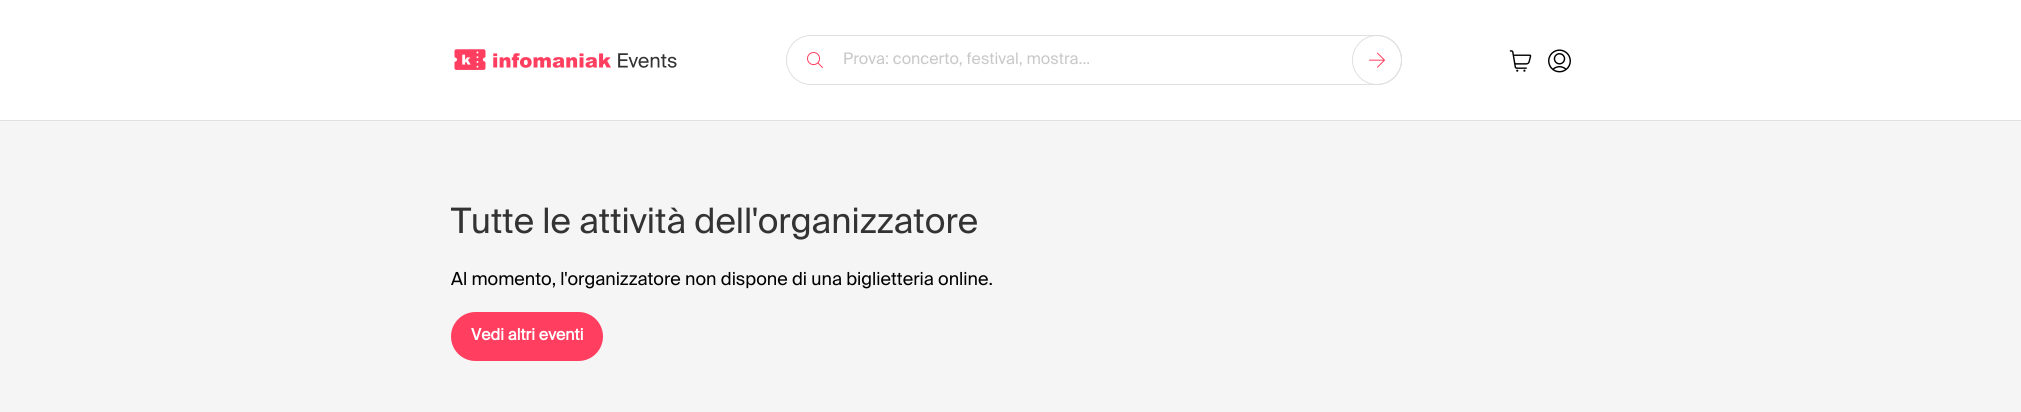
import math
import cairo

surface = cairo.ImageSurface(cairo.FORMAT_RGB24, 2021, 412)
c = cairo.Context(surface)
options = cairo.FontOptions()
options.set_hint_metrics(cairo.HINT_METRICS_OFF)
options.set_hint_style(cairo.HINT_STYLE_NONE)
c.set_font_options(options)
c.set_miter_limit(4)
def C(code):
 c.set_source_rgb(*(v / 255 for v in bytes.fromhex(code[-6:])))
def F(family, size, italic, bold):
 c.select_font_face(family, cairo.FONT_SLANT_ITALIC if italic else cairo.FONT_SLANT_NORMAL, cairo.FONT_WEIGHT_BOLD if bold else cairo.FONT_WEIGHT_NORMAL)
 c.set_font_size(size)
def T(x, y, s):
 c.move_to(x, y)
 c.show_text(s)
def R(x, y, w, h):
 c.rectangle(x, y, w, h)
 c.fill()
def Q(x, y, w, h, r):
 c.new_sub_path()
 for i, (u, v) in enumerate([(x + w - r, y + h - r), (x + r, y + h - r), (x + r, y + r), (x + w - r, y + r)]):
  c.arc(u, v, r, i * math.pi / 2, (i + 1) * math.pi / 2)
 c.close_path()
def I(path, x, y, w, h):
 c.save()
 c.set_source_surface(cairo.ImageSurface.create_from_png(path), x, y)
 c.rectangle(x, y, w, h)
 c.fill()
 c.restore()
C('f5f5f5')
c.paint()
C('ffffff')
R(0,0,2021,120)
C('e0e0e0')
R(0,120,2021,1)
I('1.png',454,49,223,21)
Q(786.5,35.5,615,49,24.5)
c.set_line_width(1)
c.stroke()
I('2.png',807,52,16,16)
F('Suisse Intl',16,0,0)
C('c9c9c9')
T(843,64,'Prova: concerto, festival, mostra...')
c.new_path()
c.arc(1377,60,24.5,0,2 * math.pi)
C('e0e0e0')
c.stroke()
I('3.png',1369,52,16,16)
I('4.png',1509,50,23,22)
I('5.png',1548,49,23,24)
F('Suisse Intl',35,0,0)
C('333333')
T(451,233,'Tutte le attività dell\'organizzatore')
F('Suisse Intl',18,0,0)
C('000000')
T(451,285,'Al momento, l\'organizzatore non dispone di una biglietteria online.')
C('ff3e60')
Q(451,312,152,49,24.5)
c.fill()
F('Suisse Intl',16,0,1)
C('ffffff')
T(471,340,'Vedi altri eventi')
surface.write_to_png('o.png')
